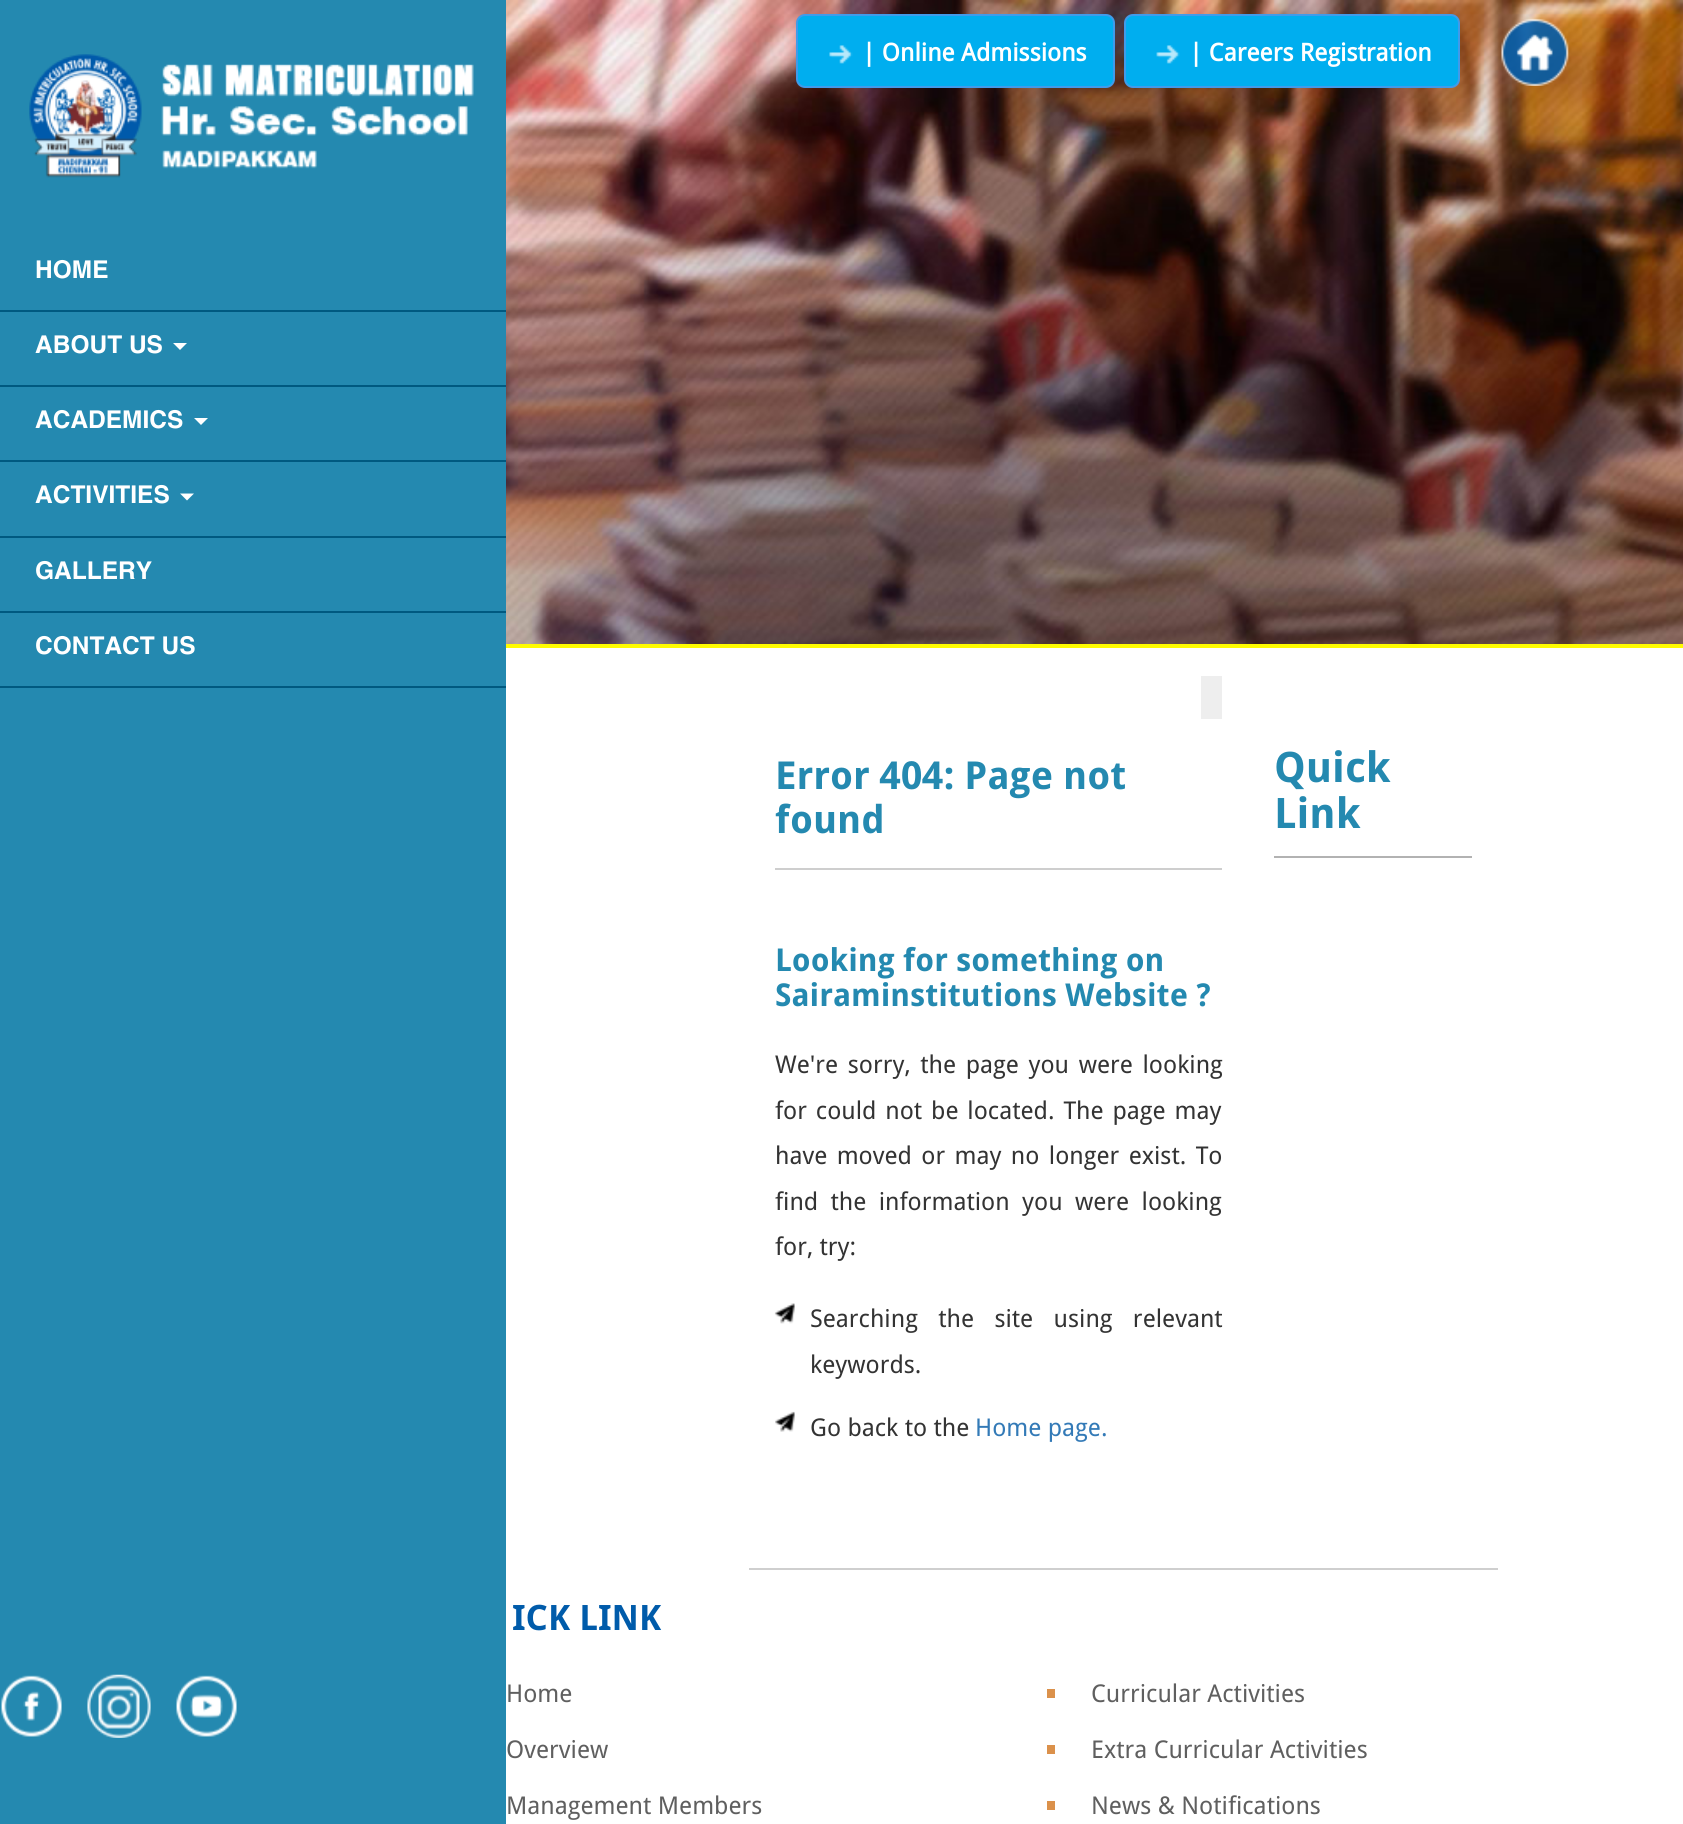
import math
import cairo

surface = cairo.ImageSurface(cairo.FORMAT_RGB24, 1683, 1824)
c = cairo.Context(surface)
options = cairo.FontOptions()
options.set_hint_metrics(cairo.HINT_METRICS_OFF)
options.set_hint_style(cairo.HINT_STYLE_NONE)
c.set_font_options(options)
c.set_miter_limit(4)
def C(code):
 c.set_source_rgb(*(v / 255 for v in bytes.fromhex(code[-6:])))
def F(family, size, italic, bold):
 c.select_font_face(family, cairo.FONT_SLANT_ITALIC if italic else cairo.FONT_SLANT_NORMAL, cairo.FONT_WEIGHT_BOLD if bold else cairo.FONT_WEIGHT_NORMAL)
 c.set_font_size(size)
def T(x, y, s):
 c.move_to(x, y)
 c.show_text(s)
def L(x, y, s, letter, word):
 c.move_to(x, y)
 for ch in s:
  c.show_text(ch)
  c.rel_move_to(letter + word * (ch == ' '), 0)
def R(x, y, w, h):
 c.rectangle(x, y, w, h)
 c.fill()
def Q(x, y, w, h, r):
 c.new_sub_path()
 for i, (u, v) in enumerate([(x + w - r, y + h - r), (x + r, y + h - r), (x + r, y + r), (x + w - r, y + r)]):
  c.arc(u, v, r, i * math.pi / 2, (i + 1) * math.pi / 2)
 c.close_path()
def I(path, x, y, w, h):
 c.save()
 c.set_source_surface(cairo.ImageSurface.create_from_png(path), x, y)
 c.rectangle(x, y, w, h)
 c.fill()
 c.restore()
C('ffffff')
c.paint()
I('1.png',506,0,1177,644)
C('fffc00')
R(506,644,1177,4)
C('00aeef')
Q(797,15,317,72,8)
c.fill_preserve()
C('409bea')
c.stroke()
I('2.png',829,45,24,19)
F('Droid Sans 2',24.5,0,1)
C('ffffff')
T(862,61,'| Online Admissions')
C('00aeef')
Q(1125,15,334,72,8)
c.fill_preserve()
C('409bea')
c.stroke()
I('3.png',1156,45,24,19)
C('ffffff')
T(1189,61,'| Careers Registration')
I('4.png',1501,18,68,68)
C('2489b0')
R(0,0,506,1824)
I('5.png',29,54,445,124)
C('005980')
R(0,310,506,2)
F('Helvetica',24.5,0,1)
C('ffffff')
T(35,278,'HOME')
C('005980')
R(0,385,506,2)
C('ffffff')
T(35,353,'ABOUT US')
c.new_path()
c.move_to(173,343)
c.line_to(187,343)
c.line_to(180,350)
c.close_path()
c.fill()
C('005980')
R(0,460,506,2)
C('ffffff')
T(35,428,'ACADEMICS')
c.new_path()
c.move_to(194,418)
c.line_to(208,418)
c.line_to(201,425)
c.close_path()
c.fill()
C('005980')
R(0,536,506,2)
C('ffffff')
T(35,503,'ACTIVITIES')
c.new_path()
c.move_to(180,493.5)
c.line_to(194,493.5)
c.line_to(187,500.5)
c.close_path()
c.fill()
C('005980')
R(0,611,506,2)
C('ffffff')
T(35,579,'GALLERY')
C('005980')
R(0,686,506,2)
C('ffffff')
T(35,654,'CONTACT US')
I('6.png',1,1675,61,62)
I('7.png',87,1674,64,64)
I('8.png',176,1675,61,62)
C('cfcfcf')
R(749,1568,749,2)
C('eeeeee')
R(1201,676,21,43)
C('cecece')
R(775,868,447,2)
F('Droid Sans',38.5,0,1)
C('2489b0')
T(775,789,'Error 404: Page not')
T(775,833,'found')
F('Droid Sans',31.5,0,1)
T(775,971,'Looking for something on')
T(775,1006,'Sairaminstitutions Website ?')
F('Droid Sans',24.5,0,0)
C('333333')
L(775,1073,'We\'re sorry, the page you were looking',0,3.25)
L(775,1119,'for could not be located. The page may',0,2.5)
L(775,1164,'have moved or may no longer exist. To',0,3)
L(775,1210,'find the information you were looking',0,6)
T(775,1255,'for, try:')
I('9.png',774,1303,21,21)
L(810,1327,'Searching the site using relevant',0,14)
T(810,1373,'keywords.')
I('10.png',775,1411,20,21)
T(810,1436,'Go back to the')
C('337ab7')
T(975,1436,'Home page.')
C('b2b2b2')
R(1274,856,198,2)
F('Droid Sans',42,0,1)
C('2489b0')
T(1274,782,'Quick')
T(1274,828,'Link')
F('Droid Sans',35,0,1)
C('005baa')
T(512,1630,'ICK LINK')
F('Droid Sans',24.5,0,0)
C('5f5f5f')
T(506,1702,'Home')
C('db914b')
R(1047,1689,8,9)
C('5f5f5f')
T(1091,1702,'Curricular Activities')
T(506,1758,'Overview')
C('db914b')
R(1047,1745,8,9)
C('5f5f5f')
T(1091,1758,'Extra Curricular Activities')
T(506,1814,'Management Members')
C('db914b')
R(1047,1801,8,9)
C('5f5f5f')
T(1091,1814,'News & Notifications')
surface.write_to_png('o.png')
